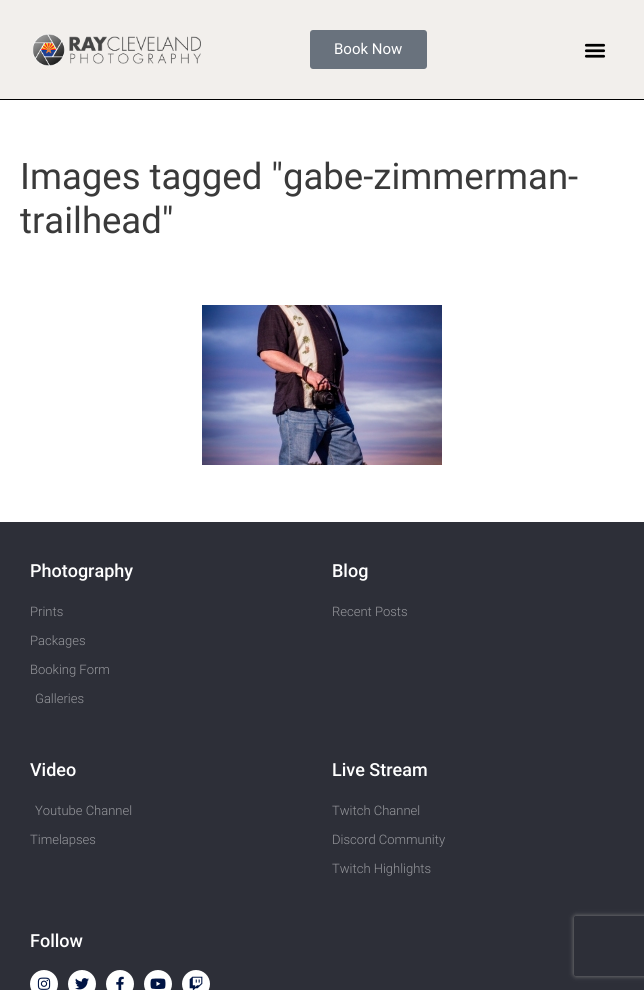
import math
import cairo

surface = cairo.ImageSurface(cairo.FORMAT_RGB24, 644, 990)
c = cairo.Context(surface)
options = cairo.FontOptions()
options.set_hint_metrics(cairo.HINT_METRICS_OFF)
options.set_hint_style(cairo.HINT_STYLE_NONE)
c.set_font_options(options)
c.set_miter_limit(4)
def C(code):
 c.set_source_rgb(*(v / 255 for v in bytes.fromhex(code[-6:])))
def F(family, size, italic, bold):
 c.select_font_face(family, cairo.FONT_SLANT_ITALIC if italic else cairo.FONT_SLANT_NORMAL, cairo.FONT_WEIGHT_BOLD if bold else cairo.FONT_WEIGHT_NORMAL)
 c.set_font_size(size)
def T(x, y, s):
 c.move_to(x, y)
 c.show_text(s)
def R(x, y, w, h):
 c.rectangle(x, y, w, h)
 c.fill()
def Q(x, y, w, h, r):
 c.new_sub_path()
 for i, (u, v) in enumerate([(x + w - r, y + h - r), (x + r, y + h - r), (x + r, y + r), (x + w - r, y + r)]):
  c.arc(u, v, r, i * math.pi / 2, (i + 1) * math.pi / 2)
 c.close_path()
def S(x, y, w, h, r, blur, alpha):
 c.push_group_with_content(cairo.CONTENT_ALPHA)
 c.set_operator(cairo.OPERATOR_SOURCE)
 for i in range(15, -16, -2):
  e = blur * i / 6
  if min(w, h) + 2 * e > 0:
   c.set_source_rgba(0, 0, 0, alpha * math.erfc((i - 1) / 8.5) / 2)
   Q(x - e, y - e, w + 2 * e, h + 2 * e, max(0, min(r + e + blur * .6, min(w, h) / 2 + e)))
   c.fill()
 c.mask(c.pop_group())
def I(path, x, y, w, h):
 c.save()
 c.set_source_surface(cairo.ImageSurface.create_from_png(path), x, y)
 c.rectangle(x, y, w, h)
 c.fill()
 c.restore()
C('ffffff')
c.paint()
C('f2efec')
R(0,0,644,99)
C('000000')
R(0,99,644,1)
I('1.png',33,34,168,32)
C('69727d')
Q(310,30,117,39,3)
c.fill()
F('Roboto',15,0,0)
C('ffffff')
T(334,54,'Book Now')
I('2.png',584,43,22,15)
F('Roboto',36.5,0,0)
C('3a3a3a')
T(20,189,'Images tagged "gabe-zimmerman-')
T(20,233,'trailhead"')
I('3.png',202,305,240,160)
C('2d2f38')
R(0,522,644,468)
F('Roboto Medium',18,0,0)
C('ffffff')
T(30,577,'Photography')
F('Roboto Light',13,0,0)
C('96979c')
T(30,616,'Prints')
T(30,645,'Packages')
T(30,674,'Booking Form')
T(35,703,'Galleries')
F('Roboto Medium',18,0,0)
C('ffffff')
T(332,577,'Blog')
F('Roboto Light',13,0,0)
C('96979c')
T(332,616,'Recent Posts')
F('Roboto Medium',18,0,0)
C('ffffff')
T(30,776,'Video')
F('Roboto Light',13,0,0)
C('96979c')
T(35,815,'Youtube Channel')
T(30,844,'Timelapses')
F('Roboto Medium',18,0,0)
C('ffffff')
T(332,776,'Live Stream')
F('Roboto Light',13,0,0)
C('96979c')
T(332,815,'Twitch Channel')
T(332,844,'Discord Community')
T(332,873,'Twitch Highlights')
F('Roboto Medium',18,0,0)
C('ffffff')
T(30,947,'Follow')
c.new_path()
c.arc(44,984,14,0,2 * math.pi)
c.fill()
I('4.png',37,977,14,13)
c.arc(82,984,14,0,2 * math.pi)
c.fill()
I('5.png',75,978,14,12)
c.arc(120,984,14,0,2 * math.pi)
c.fill()
I('6.png',116,976,8,14)
c.arc(158,984,14,0,2 * math.pi)
c.fill()
I('7.png',150,978,16,11)
c.arc(196,984,14,0,2 * math.pi)
c.fill()
I('8.png',189,976,14,14)
c.save()
c.set_fill_rule(cairo.FILL_RULE_EVEN_ODD)
c.new_path()
c.move_to(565,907)
c.line_to(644,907)
c.line_to(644,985)
c.line_to(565,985)
c.close_path()
c.move_to(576,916)
c.line_to(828,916)
c.curve_to(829,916,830,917,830,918)
c.line_to(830,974)
c.curve_to(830,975,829,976,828,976)
c.line_to(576,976)
c.curve_to(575,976,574,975,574,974)
c.line_to(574,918)
c.curve_to(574,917,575,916,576,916)
c.close_path()
c.clip()
C('808080')
S(574,916,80,60,2,2.5,1)
c.restore()
surface.write_to_png('o.png')
